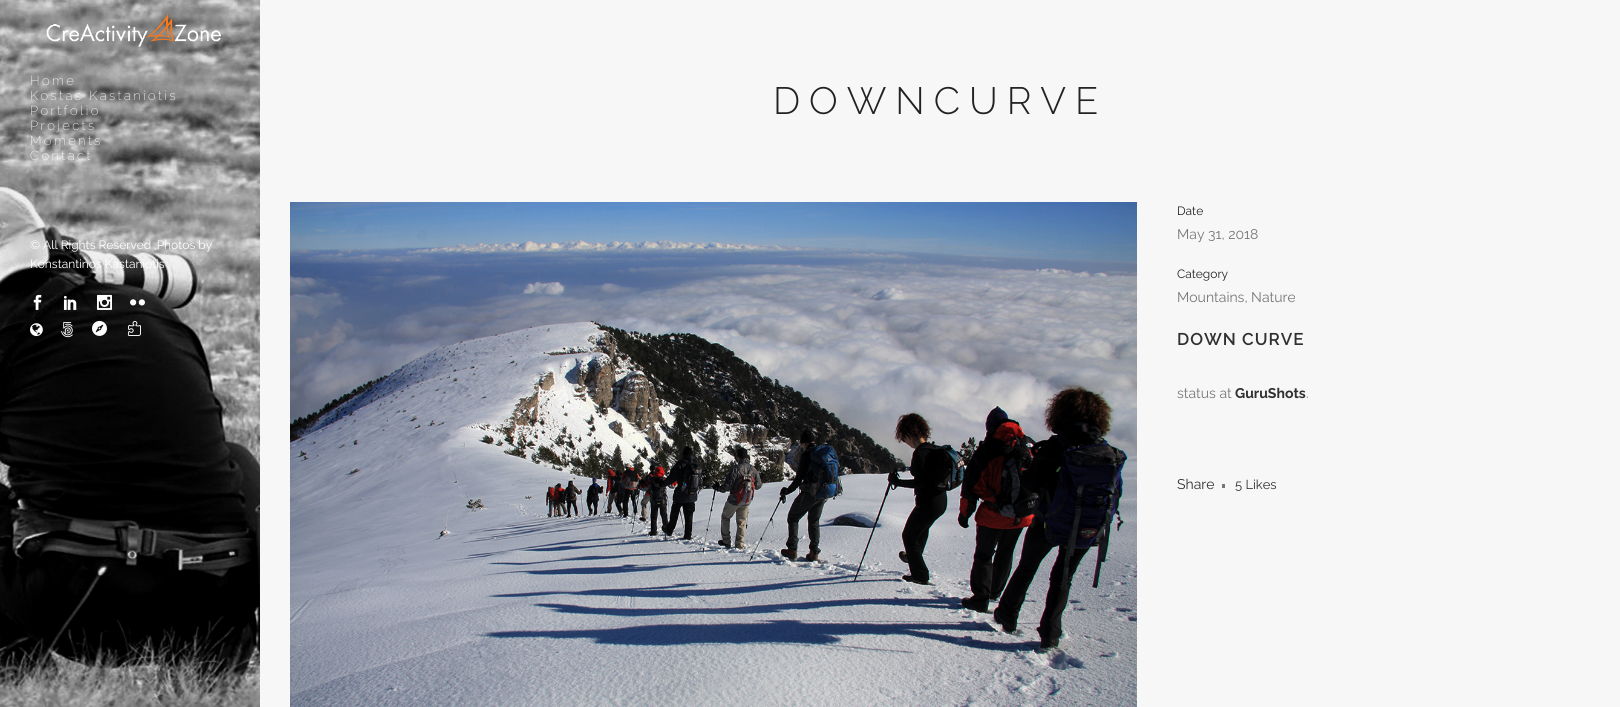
import math
import cairo

surface = cairo.ImageSurface(cairo.FORMAT_RGB24, 1620, 707)
c = cairo.Context(surface)
options = cairo.FontOptions()
options.set_hint_metrics(cairo.HINT_METRICS_OFF)
options.set_hint_style(cairo.HINT_STYLE_NONE)
c.set_font_options(options)
c.set_miter_limit(4)
def C(code):
 c.set_source_rgb(*(v / 255 for v in bytes.fromhex(code[-6:])))
def F(family, size, italic, bold):
 c.select_font_face(family, cairo.FONT_SLANT_ITALIC if italic else cairo.FONT_SLANT_NORMAL, cairo.FONT_WEIGHT_BOLD if bold else cairo.FONT_WEIGHT_NORMAL)
 c.set_font_size(size)
def T(x, y, s):
 c.move_to(x, y)
 c.show_text(s)
def L(x, y, s, letter, word):
 c.move_to(x, y)
 for ch in s:
  c.show_text(ch)
  c.rel_move_to(letter + word * (ch == ' '), 0)
def R(x, y, w, h):
 c.rectangle(x, y, w, h)
 c.fill()
def I(path, x, y, w, h):
 c.save()
 c.set_source_surface(cairo.ImageSurface.create_from_png(path), x, y)
 c.rectangle(x, y, w, h)
 c.fill()
 c.restore()
C('f7f7f7')
c.paint()
I('1.png',0,0,260,707)
I('2.png',46,14,175,33)
F('Raleway ExtraLight',13,0,0)
C('ffffff')
L(30,85,'Home',2.4,0)
L(30,100,'Kostas Kastaniotis',2.4,0)
L(30,115,'Portfolio',2.4,0)
L(30,130,'Projects',2.4,0)
L(30,145,'Moments',2.4,0)
L(30,160,'Contact',2.4,0)
F('Raleway',12,0,0)
T(30,249,'© All Rights Reserved .Photos by')
T(30,268,'Konstantinos Kastaniotis')
I('3.png',33,294,9,16)
I('4.png',63,295,14,15)
I('5.png',97,294,15,16)
I('6.png',130,299,15,7)
I('7.png',30,323,13,14)
I('8.png',61,322,12,16)
I('9.png',92,320,15,16)
I('10.png',127,321,14,15)
F('Raleway Light',38,0,0)
C('222222')
L(773,114,'DOWNCURVE',9,0)
I('11.png',290,202,847,505)
F('Raleway',12,0,0)
T(1177,215,'Date')
F('Raleway',14,0,0)
C('777777')
T(1177,239,'May 31, 2018')
F('Raleway',12,0,0)
C('222222')
T(1177,278,'Category')
F('Raleway',14,0,0)
C('777777')
T(1177,302,'Mountains, Nature')
F('Raleway SemiBold',17,0,0)
C('303030')
L(1177,345,'DOWN CURVE',1,0)
F('Raleway',14,0,0)
C('777777')
T(1177,398,'status at')
F('Raleway',14,0,1)
C('303030')
T(1235,398,'GuruShots')
F('Raleway',14,0,0)
C('777777')
T(1306,398,'.')
C('303030')
T(1177,489,'Share')
C('777777')
R(1222,484,3,4)
F('Raleway',13,0,0)
C('303030')
T(1235,489,'5 Likes')
surface.write_to_png('o.png')
